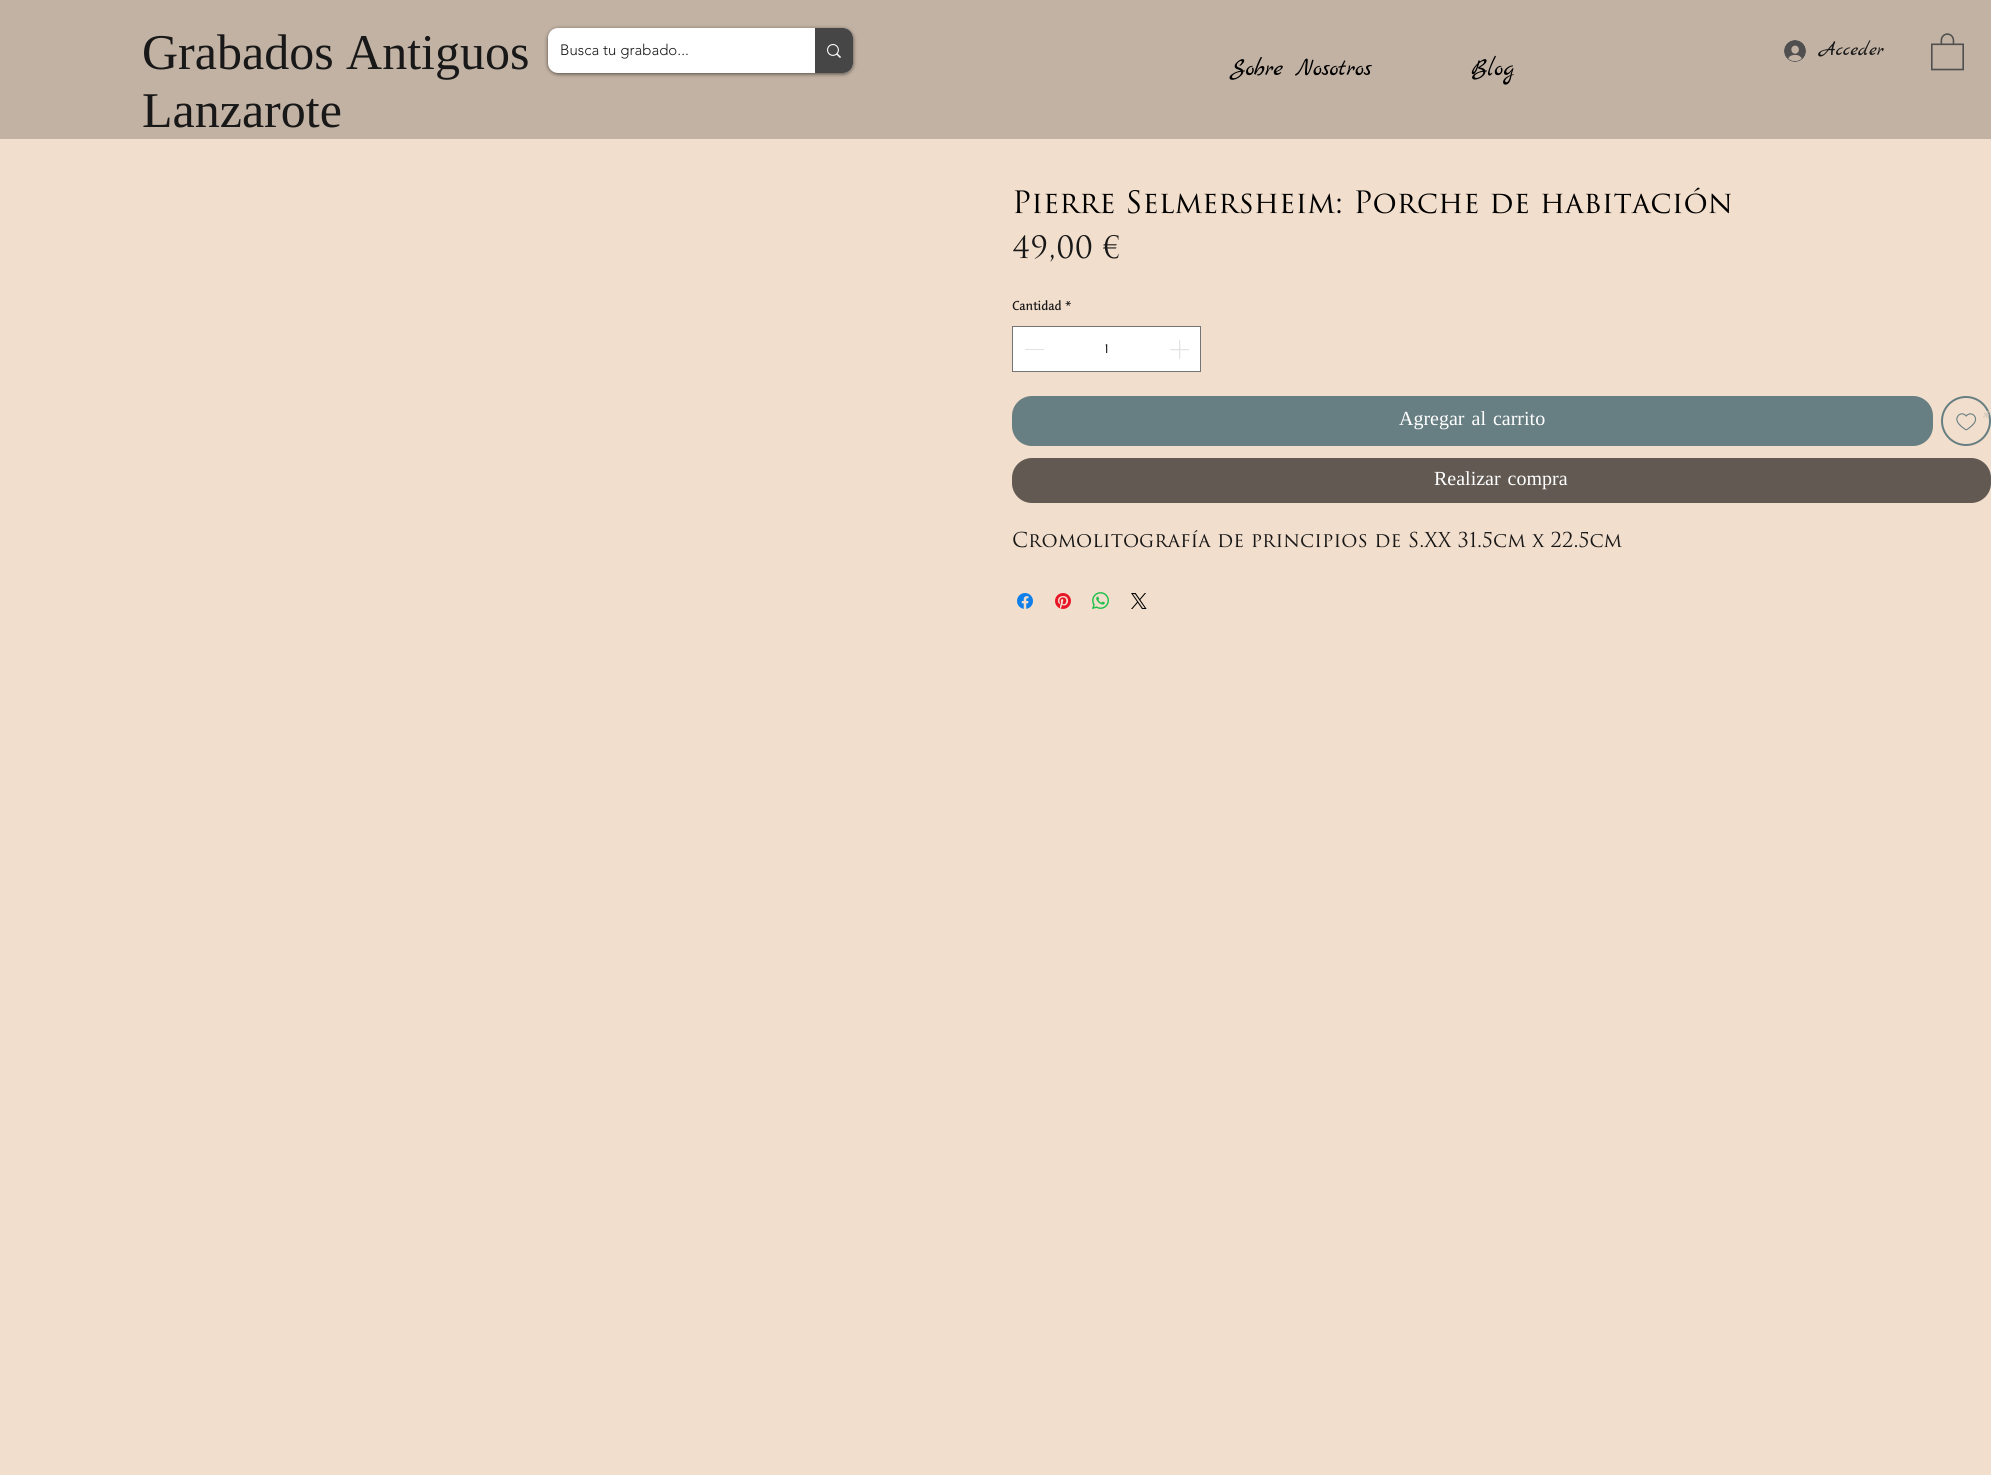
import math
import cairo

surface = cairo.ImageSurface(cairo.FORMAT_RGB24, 1991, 1475)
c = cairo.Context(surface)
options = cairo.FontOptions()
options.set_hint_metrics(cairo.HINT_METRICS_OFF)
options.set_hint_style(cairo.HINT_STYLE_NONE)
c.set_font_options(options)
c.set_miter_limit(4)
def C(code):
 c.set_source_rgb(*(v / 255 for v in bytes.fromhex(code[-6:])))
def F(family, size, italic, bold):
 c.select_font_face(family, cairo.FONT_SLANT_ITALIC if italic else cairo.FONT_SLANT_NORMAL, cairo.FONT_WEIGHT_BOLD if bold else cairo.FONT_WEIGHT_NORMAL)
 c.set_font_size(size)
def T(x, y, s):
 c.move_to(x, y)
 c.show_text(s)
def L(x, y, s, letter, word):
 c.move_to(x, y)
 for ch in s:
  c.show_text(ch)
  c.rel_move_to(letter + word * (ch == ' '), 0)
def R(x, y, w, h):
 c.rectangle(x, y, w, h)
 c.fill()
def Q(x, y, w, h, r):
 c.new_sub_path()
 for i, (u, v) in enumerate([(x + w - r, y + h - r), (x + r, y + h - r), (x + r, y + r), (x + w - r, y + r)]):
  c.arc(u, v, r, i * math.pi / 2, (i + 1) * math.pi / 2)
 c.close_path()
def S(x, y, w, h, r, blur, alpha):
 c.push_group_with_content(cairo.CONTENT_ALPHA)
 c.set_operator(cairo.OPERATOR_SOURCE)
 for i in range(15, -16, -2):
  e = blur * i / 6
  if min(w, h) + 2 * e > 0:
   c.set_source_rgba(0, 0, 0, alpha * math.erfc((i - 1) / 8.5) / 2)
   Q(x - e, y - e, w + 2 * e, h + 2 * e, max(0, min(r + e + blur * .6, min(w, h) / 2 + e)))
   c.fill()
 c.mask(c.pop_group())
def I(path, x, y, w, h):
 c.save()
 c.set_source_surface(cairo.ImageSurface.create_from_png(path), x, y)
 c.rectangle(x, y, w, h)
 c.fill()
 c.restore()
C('c2b2a3')
c.paint()
F('Liberation Serif',50,0,0)
C('181818')
T(142,69,'Grabados Antiguos')
T(142,127,'Lanzarote')
C('000000')
S(548,29,305,45,10,2,.6)
C('ffffff')
Q(548,28,305,45,10)
c.fill()
F('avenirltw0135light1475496 Light',15,0,0)
C('181818')
T(560,55,'Busca tu grabado...')
c.set_source_rgba(0.094,0.094,0.094,0.8)
c.new_path()
c.move_to(815,28)
c.line_to(843,28)
c.curve_to(848.5,28,853,32.5,853,38)
c.line_to(853,63)
c.curve_to(853,68.5,848.5,73,843,73)
c.line_to(815,73)
c.close_path()
c.fill()
I('1.png',827,44,14,14)
I('2.png',1784,40,22,22)
F('Marck Script',20,0,0)
C('181818')
T(1820,55,'Acceder')
I('3.png',1931,33,33,38)
F('Marck Script',25,0,0)
C('000000')
T(1230,75,'Sobre Nosotros')
T(1471,75,'Blog')
C('f2decc')
R(0,139,1991,1336)
F('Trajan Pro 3',30,0,0)
C('000000')
T(1012,213,'Pierre Selmersheim: Porche de habitación')
C('181818')
T(1012,258,'49,00 €')
F('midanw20',20,0,0)
T(1012,310,'Cantidad')
T(1065,310,'*')
C('ffffff')
c.rectangle(1012.5,326.5,188,45)
c.fill_preserve()
C('747474')
c.set_line_width(1)
c.stroke()
C('e3e3e3')
R(1025,349,19,1)
C('181818')
T(1103,353,'1')
I('4.png',1170,340,19,19)
C('677e82')
Q(1012,396,921,50,20)
c.fill()
F('Liberation Serif',20,0,0)
C('ffffff')
L(1399,425,'Agregar al carrito',0,2)
c.new_path()
c.arc(1966,421,24,0,2 * math.pi)
C('677e82')
c.set_line_width(2)
c.stroke()
I('5.png',1956,413,21,18)
c.save()
c.rectangle(1943,405,46,32)
c.clip()
F('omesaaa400',20,1,0)
C('d7cbbd')
T(1979,425,'*')
c.restore()
C('615952')
Q(1012,458,979,45,20)
c.fill()
C('ffffff')
L(1434,485,'Realizar compra',0,2)
F('Trajan Pro 3',20,0,0)
C('181818')
T(1012,547,'Cromolitografía de principios de S.XX 31.5cm x 22.5cm')
I('6.png',1017,593,16,16)
I('7.png',1055,593,16,16)
I('8.png',1092,592,17,17)
I('9.png',1131,593,16,16)
surface.write_to_png('o.png')
